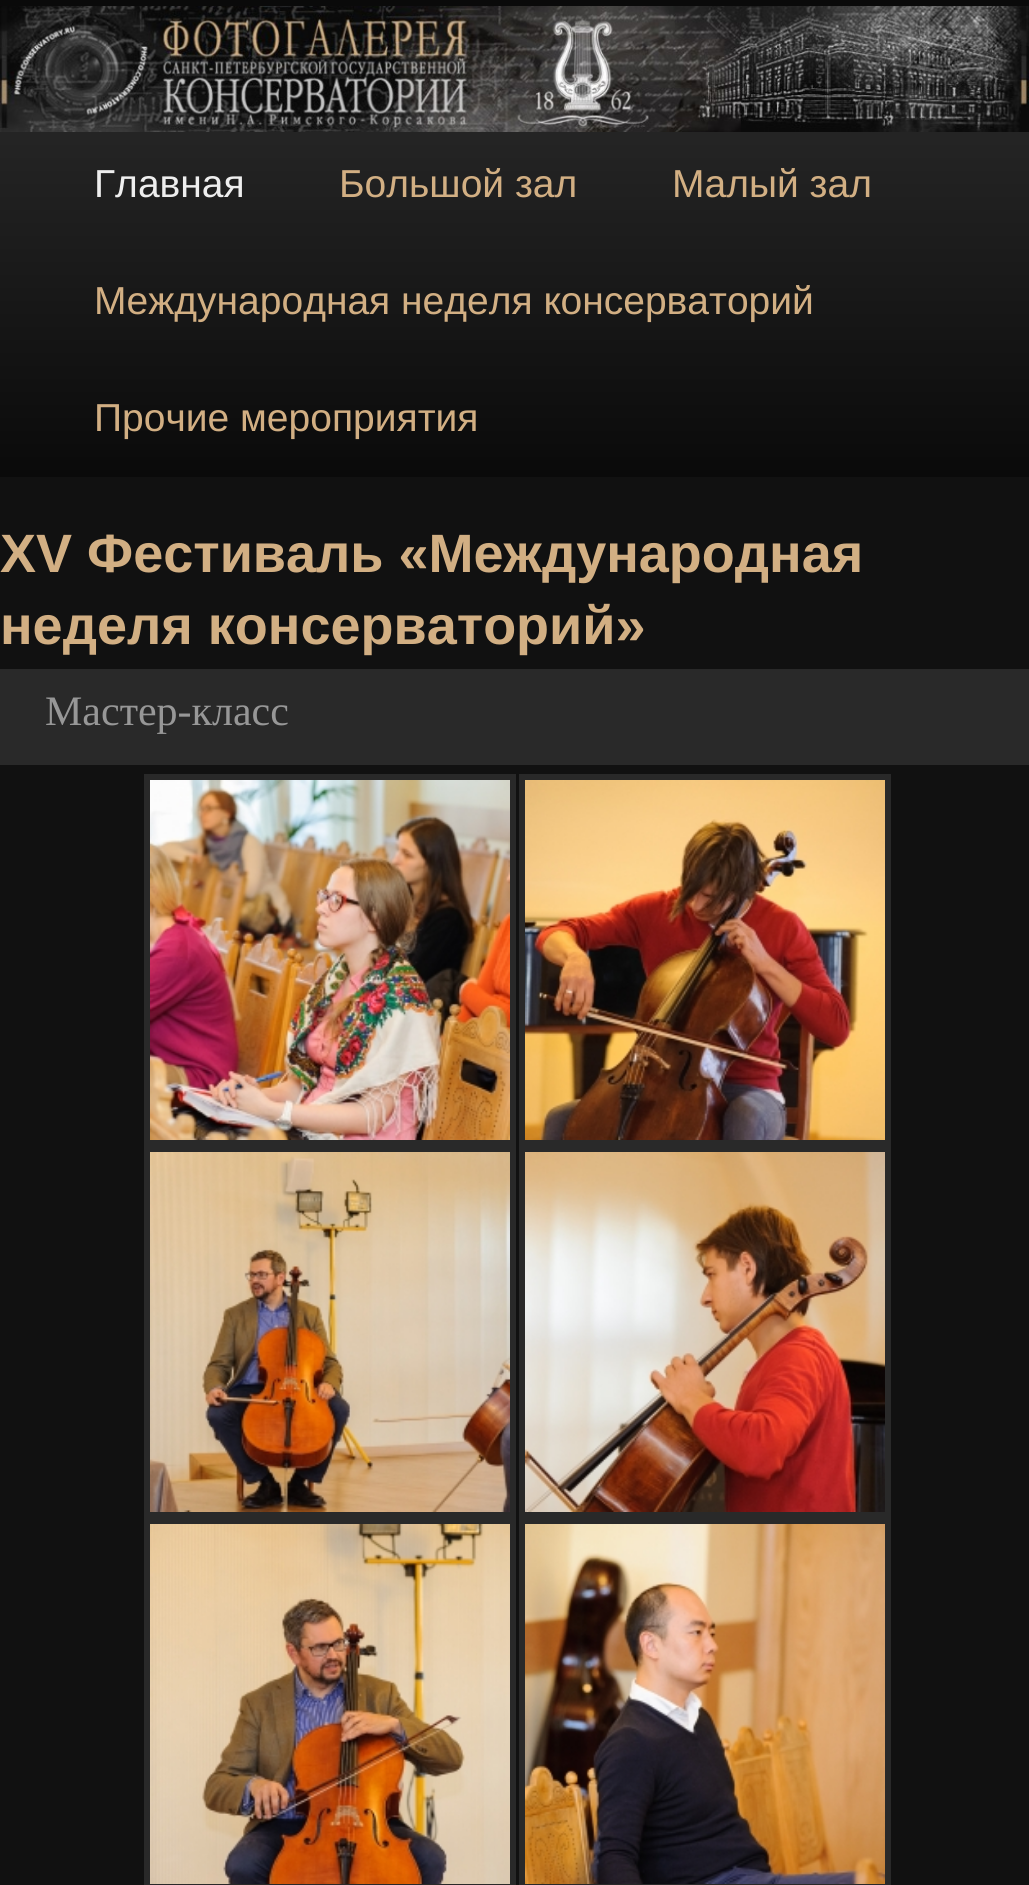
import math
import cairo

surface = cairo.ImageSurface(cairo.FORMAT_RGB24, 1029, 1885)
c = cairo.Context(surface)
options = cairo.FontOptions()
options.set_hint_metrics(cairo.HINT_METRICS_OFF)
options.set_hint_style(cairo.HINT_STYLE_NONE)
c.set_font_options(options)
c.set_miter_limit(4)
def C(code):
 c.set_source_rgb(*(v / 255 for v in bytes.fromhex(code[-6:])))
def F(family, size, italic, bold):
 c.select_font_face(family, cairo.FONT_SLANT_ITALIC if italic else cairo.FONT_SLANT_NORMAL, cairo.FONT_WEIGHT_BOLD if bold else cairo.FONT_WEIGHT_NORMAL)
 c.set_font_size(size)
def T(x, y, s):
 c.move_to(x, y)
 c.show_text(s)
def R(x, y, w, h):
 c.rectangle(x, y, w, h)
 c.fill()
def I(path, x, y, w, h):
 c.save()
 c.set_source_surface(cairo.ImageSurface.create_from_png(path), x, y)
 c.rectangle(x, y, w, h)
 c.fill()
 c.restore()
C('111111')
c.paint()
C('0a0a0a')
R(0,0,1029,6)
I('1.png',0,6,1029,126)
gradient = cairo.LinearGradient(515,126,515,477)
gradient.add_color_stop_rgba(0,0.145,0.145,0.145,1)
gradient.add_color_stop_rgba(1,0.039,0.039,0.039,1)
c.set_source(gradient)
R(0,132,1029,345)
F('Liberation Sans',39,0,0)
C('eeeeee')
T(94,197,'Главная')
C('d2af83')
T(339,197,'Большой зал')
T(672,197,'Малый зал')
T(94,314,'Международная неделя консерваторий')
T(94,431,'Прочие мероприятия')
F('Liberation Sans',54,0,1)
T(0,572,'XV Фестиваль «Международная')
T(0,644,'неделя консерваторий»')
C('292929')
R(0,669,1029,96)
F('Liberation Serif',42,0,0)
C('979797')
T(45,725,'Мастер-класс')
C('292929')
R(144,774,372,1111)
I('2.png',150,780,360,360)
R(519,774,372,1111)
I('3.png',525,780,360,360)
I('4.png',150,1152,360,360)
I('5.png',525,1152,360,360)
I('6.png',150,1524,360,360)
I('7.png',525,1524,360,360)
surface.write_to_png('o.png')
